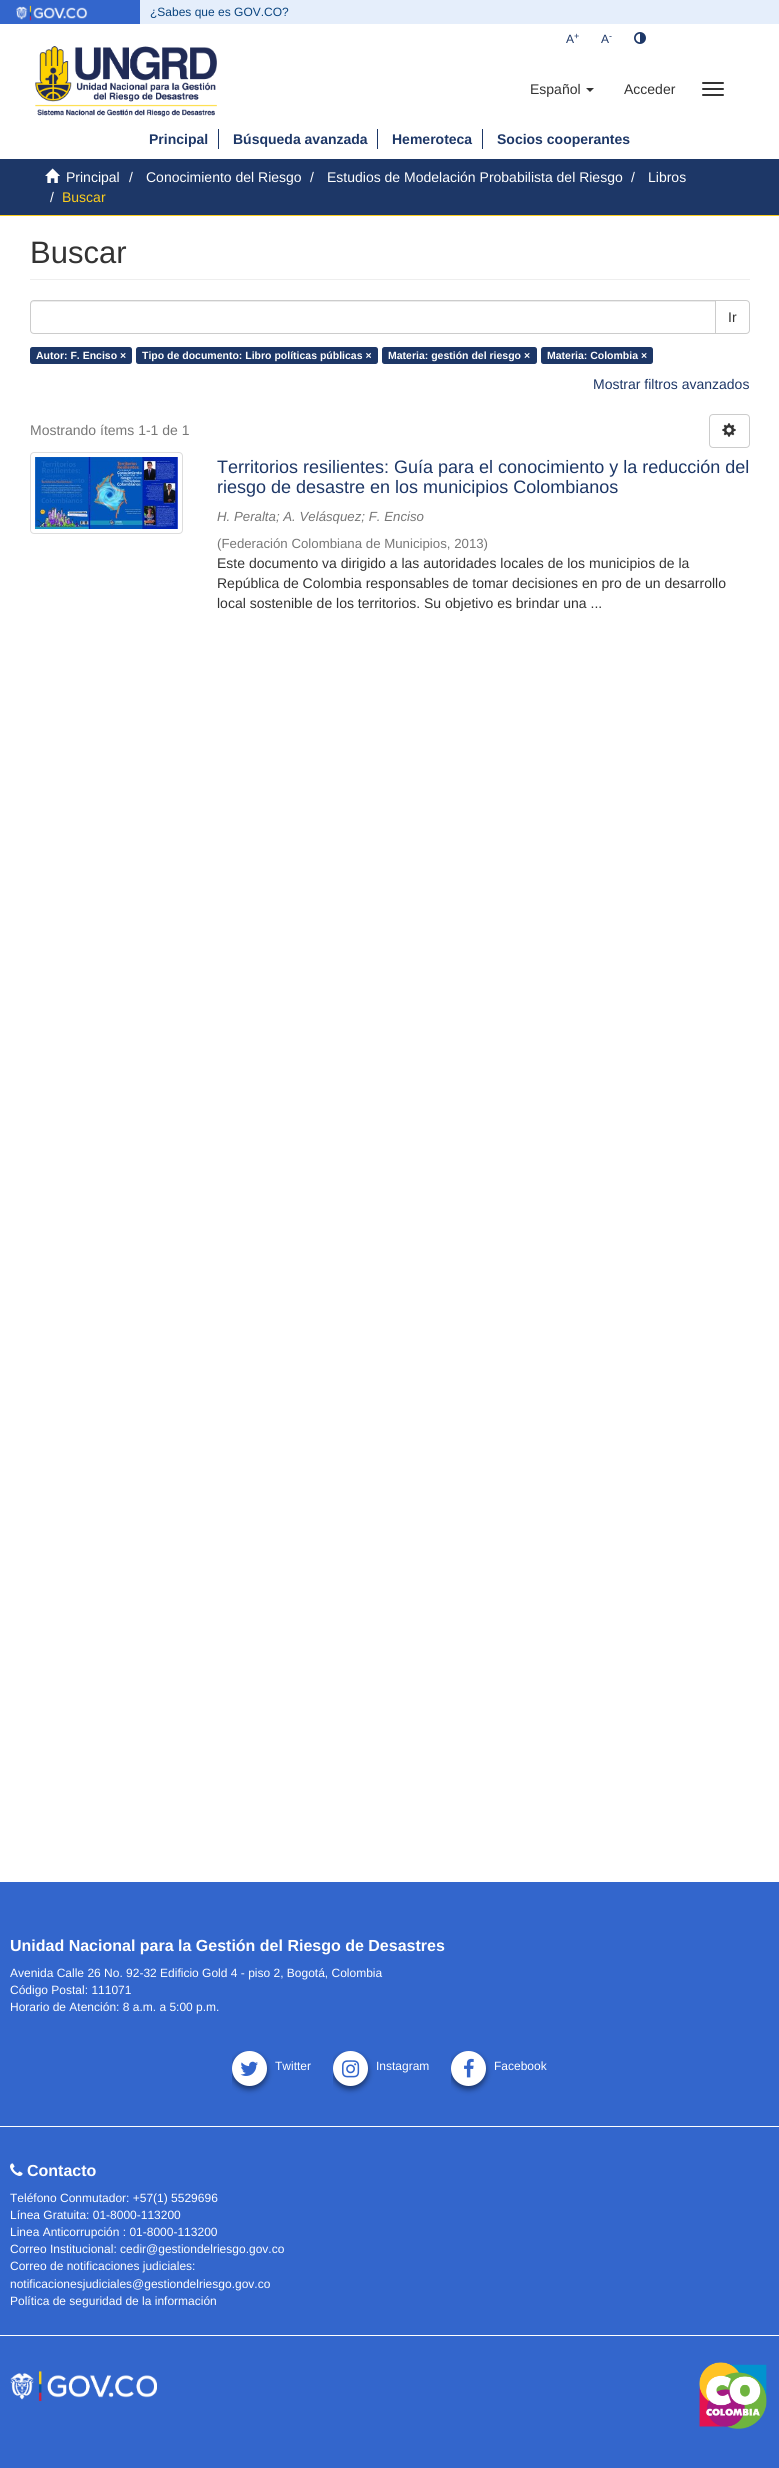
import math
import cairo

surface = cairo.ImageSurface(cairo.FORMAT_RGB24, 779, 2468)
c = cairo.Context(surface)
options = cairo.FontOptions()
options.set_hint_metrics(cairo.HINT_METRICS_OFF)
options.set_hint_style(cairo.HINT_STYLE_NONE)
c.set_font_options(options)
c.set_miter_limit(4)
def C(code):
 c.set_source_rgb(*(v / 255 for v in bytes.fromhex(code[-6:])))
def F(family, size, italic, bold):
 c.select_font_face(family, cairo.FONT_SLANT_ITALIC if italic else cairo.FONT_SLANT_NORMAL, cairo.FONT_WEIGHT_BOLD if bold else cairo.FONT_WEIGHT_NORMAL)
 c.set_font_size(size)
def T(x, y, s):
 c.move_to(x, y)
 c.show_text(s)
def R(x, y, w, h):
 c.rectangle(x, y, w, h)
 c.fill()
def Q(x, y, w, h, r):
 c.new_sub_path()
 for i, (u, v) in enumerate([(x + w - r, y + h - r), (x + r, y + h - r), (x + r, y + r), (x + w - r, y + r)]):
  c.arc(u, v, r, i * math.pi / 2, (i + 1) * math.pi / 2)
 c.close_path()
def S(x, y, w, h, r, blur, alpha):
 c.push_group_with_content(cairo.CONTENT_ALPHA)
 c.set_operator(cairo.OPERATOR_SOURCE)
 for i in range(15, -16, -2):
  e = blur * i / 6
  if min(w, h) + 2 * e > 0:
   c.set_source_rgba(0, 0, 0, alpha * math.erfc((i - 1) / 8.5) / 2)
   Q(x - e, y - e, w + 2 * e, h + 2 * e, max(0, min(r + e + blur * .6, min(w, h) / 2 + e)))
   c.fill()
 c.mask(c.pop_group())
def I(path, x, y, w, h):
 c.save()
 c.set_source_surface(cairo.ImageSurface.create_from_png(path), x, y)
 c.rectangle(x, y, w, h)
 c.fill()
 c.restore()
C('ffffff')
c.paint()
C('3366cc')
R(0,0,140,24)
C('e5eefb')
R(140,0,639,24)
I('1.png',16,5,72,16)
F('Liberation Sans',12,0,0)
C('0b457f')
T(150,16,'¿Sabes que es GOV.CO?')
I('2.png',35,46,182,71)
C('1d3767')
T(566,43,'A')
F('Liberation Sans',9,0,0)
T(574,39,'+')
F('Liberation Sans',12,0,0)
T(601,43,'A')
F('Liberation Sans',9,0,0)
T(609,39,'-')
I('3.png',634,32,12,12)
F('Liberation Sans',14,0,0)
C('333333')
T(530,94,'Español')
c.new_path()
c.move_to(586,88)
c.line_to(594,88)
c.line_to(590,92)
c.close_path()
c.fill()
T(624,94,'Acceder')
Q(702,82,22,2,1)
c.fill()
Q(702,88,22,2,1)
c.fill()
Q(702,94,22,2,1)
c.fill()
C('1d3767')
R(218,129,1,20)
F('Liberation Sans',14,0,1)
T(149,144,'Principal')
R(377,129,1,20)
T(233,144,'Búsqueda avanzada')
R(482,129,1,20)
T(392,144,'Hemeroteca')
T(497,144,'Socios cooperantes')
R(0,159,779,56)
C('fccd1d')
R(0,215,779,1)
I('4.png',45,168,15,15)
F('Liberation Sans',14,0,0)
C('ffffff')
T(66,182,'Principal')
T(129,182,'/')
T(146,182,'Conocimiento del Riesgo')
T(310,182,'/')
T(327,182,'Estudios de Modelación Probabilista del Riesgo')
T(631,182,'/')
T(648,182,'Libros')
T(50,202,'/')
C('fccd1d')
T(62,202,'Buscar')
C('eeeeee')
R(30,279,720,1)
F('Liberation Sans',31,0,0)
C('333333')
T(30,263,'Buscar')
c.new_path()
c.move_to(715.5,300.5)
c.line_to(746,300.5)
c.curve_to(748,300.5,749.5,302,749.5,304)
c.line_to(749.5,330)
c.curve_to(749.5,332,748,333.5,746,333.5)
c.line_to(715.5,333.5)
c.close_path()
C('cccccc')
c.set_line_width(1)
c.stroke()
C('ffffff')
c.new_path()
c.move_to(34,300)
c.line_to(716,300)
c.line_to(716,334)
c.line_to(34,334)
c.curve_to(32,334,30,332,30,330)
c.line_to(30,304)
c.curve_to(30,302,32,300,34,300)
c.close_path()
c.fill()
C('ececec')
c.new_path()
c.move_to(34,302)
c.line_to(715,302)
c.line_to(715,301)
c.line_to(34,301)
c.curve_to(32,301,31,302,31,304)
c.line_to(31,305)
c.curve_to(31,303,32,302,34,302)
c.close_path()
c.fill()
c.new_path()
c.move_to(34,300.5)
c.line_to(715.5,300.5)
c.line_to(715.5,333.5)
c.line_to(34,333.5)
c.curve_to(32,333.5,30.5,332,30.5,330)
c.line_to(30.5,304)
c.curve_to(30.5,302,32,300.5,34,300.5)
c.close_path()
C('cccccc')
c.stroke()
F('Liberation Sans',14,0,0)
C('333333')
T(728,322,'Ir')
C('1d3767')
Q(30,347,102,17,2.5)
c.fill()
F('Liberation Sans',10.5,0,1)
C('ffffff')
T(36,359,'Autor: F. Enciso ×')
C('1d3767')
Q(136,347,242,17,2.5)
c.fill()
C('ffffff')
T(142,359,'Tipo de documento: Libro políticas públicas ×')
C('1d3767')
Q(382,347,155,17,2.5)
c.fill()
C('ffffff')
T(388,359,'Materia: gestión del riesgo ×')
C('1d3767')
Q(541,347,112,17,2.5)
c.fill()
C('ffffff')
T(547,359,'Materia: Colombia ×')
F('Liberation Sans',14,0,0)
C('1d3767')
T(593,389,'Mostrar filtros avanzados')
C('777777')
T(30,435,'Mostrando ítems 1-1 de 1')
Q(709.5,414.5,40,33,3.5)
C('cccccc')
c.stroke()
I('5.png',722,423,14,14)
Q(30.5,452.5,152,81,3.5)
C('dddddd')
c.stroke()
I('6.png',35,457,143,72)
F('Liberation Sans',18,0,0)
C('1d3767')
T(217,473,'Territorios resilientes: Guía para el conocimiento y la reducción del')
T(217,493,'riesgo de desastre en los municipios Colombianos')
F('Liberation Sans',13.25,1,0)
C('777777')
T(217,521,'H. Peralta; A. Velásquez; F. Enciso')
F('Liberation Sans',13.25,0,0)
T(217,548,'(Federación Colombiana de Municipios, 2013)')
F('Liberation Sans',14,0,0)
C('333333')
T(217,568,'Este documento va dirigido a las autoridades locales de los municipios de la')
T(217,588,'República de Colombia responsables de tomar decisiones en pro de un desarrollo')
T(217,608,'local sostenible de los territorios. Su objetivo es brindar una ...')
C('3366cc')
R(0,1882,779,586)
C('ffffff')
R(0,2126,779,1)
F('Liberation Sans',16,0,1)
T(10,1951,'Unidad Nacional para la Gestión del Riesgo de Desastres')
F('Liberation Sans',12,0,0)
T(10,1977,'Avenida Calle 26 No. 92-32 Edificio Gold 4 - piso 2, Bogotá, Colombia')
T(10,1994,'Código Postal: 111071')
T(10,2011,'Horario de Atención: 8 a.m. a 5:00 p.m.')
c.save()
c.rectangle(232,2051,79,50)
c.clip()
C('000000')
S(232,2054,35,35,17.5,3,.5)
c.restore()
c.arc(249.5,2068.5,17.5,0,2 * math.pi)
c.fill()
I('7.png',240,2061,18,15)
T(275,2070,'Twitter')
c.save()
c.rectangle(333,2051,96,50)
c.clip()
C('000000')
S(333,2054,35,35,17.5,3,.5)
c.restore()
c.arc(350.5,2068.5,17.5,0,2 * math.pi)
c.fill()
I('8.png',342,2060,18,18)
T(376,2070,'Instagram')
c.save()
c.rectangle(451,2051,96,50)
c.clip()
C('000000')
S(451,2054,35,35,17.5,3,.5)
c.restore()
c.arc(468.5,2068.5,17.5,0,2 * math.pi)
c.fill()
I('9.png',464,2058,10,20)
T(494,2070,'Facebook')
I('10.png',10,2163,13,13)
F('Liberation Sans',16,0,1)
T(27,2176,'Contacto')
F('Liberation Sans',12,0,0)
T(10,2202,'Teléfono Conmutador: +57(1) 5529696')
T(10,2219,'Línea Gratuita: 01-8000-113200')
T(10,2236,'Linea Anticorrupción : 01-8000-113200')
T(10,2253,'Correo Institucional: cedir@gestiondelriesgo.gov.co')
T(10,2270,'Correo de notificaciones judiciales:')
T(10,2288,'notificacionesjudiciales@gestiondelriesgo.gov.co')
T(10,2305,'Política de seguridad de la información')
R(0,2335,779,1)
I('11.png',10,2371,147,30)
I('12.png',699,2362,68,67)
surface.write_to_png('o.png')
